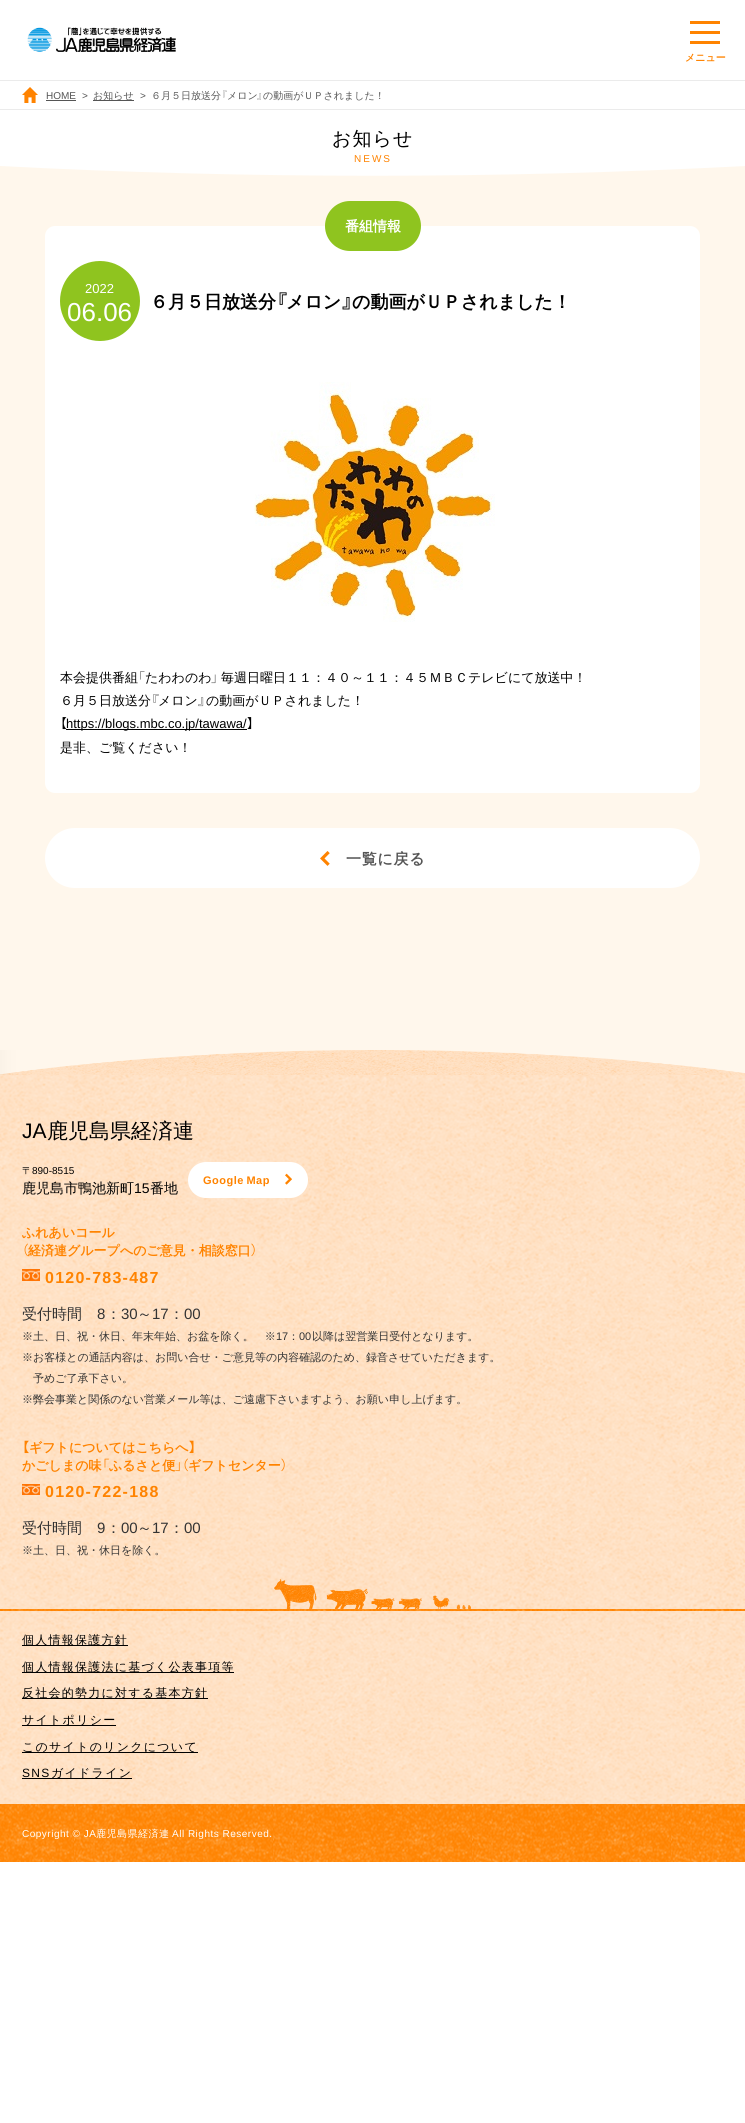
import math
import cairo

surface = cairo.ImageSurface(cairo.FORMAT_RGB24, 745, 2123)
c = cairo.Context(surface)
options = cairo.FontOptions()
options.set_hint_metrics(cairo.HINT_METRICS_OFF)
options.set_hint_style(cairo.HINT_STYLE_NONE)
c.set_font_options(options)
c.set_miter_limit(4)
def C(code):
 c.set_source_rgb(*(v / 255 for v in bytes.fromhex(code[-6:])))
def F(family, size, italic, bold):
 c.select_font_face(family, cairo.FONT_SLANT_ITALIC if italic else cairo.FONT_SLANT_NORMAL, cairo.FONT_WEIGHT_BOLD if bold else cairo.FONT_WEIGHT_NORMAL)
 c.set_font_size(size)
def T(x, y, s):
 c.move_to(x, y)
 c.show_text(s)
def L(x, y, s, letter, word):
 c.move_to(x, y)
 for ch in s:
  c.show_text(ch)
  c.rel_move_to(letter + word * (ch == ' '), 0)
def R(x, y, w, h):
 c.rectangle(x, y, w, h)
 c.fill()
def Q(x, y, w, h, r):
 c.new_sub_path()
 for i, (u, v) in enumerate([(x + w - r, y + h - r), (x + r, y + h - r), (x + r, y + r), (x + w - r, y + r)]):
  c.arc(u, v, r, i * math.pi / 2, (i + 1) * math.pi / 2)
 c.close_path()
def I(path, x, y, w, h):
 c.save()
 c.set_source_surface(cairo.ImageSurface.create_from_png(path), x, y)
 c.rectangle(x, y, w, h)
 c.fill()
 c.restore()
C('ffffff')
c.paint()
C('ebebeb')
R(0,80,745,1)
I('1.png',27,27,149,25)
C('ff8300')
R(690,21,30,3)
R(690,31,30,3)
R(690,41,30,3)
F('WenQuanYi Zen Hei',10,0,1)
T(685,61,'メニュー')
C('fff7ec')
R(0,166,745,909)
C('ebebeb')
R(0,109,745,1)
I('2.png',22,87,16,16)
F('Liberation Sans',10,0,0)
C('555555')
T(46,99,'HOME')
R(46,100,30,1)
T(82,99,'>')
R(93,100,41,1)
F('WenQuanYi Zen Hei Medium',10,0,0)
T(93,99,'お知らせ')
F('Liberation Sans',10,0,0)
T(140,99,'>')
F('WenQuanYi Zen Hei Medium',10,0,0)
T(151,99,'６月５日放送分')
F('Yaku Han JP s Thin',10,0,0)
T(221,99,'『')
F('WenQuanYi Zen Hei Medium',10,0,0)
T(227,99,'メロン')
F('Yaku Han JP s Thin',10,0,0)
T(257,99,'』')
F('WenQuanYi Zen Hei Medium',10,0,0)
T(263,99,'の動画がＵＰされました！')
F('WenQuanYi Zen Hei Medium',19,0,0)
C('000000')
L(332,145,'お知らせ',1,0)
F('Liberation Sans',10,0,0)
C('ff8300')
L(354,162,'NEWS',2,0)
C('ffffff')
c.new_path()
c.move_to(745,166)
c.curve_to(497,179,248,179,0,166)
c.close_path()
c.fill()
Q(45,226,655,567,10)
c.fill()
C('8fc41f')
Q(325,201,96,50,25)
c.fill()
F('WenQuanYi Zen Hei',14,0,1)
C('ffffff')
T(345,231,'番組情報')
C('8fc41f')
c.new_path()
c.arc(100,301,40,0,2 * math.pi)
c.fill()
F('Liberation Sans',13,0,0)
C('ffffff')
T(85,293,'2022')
F('Liberation Sans',26,0,0)
T(67,321,'06.06')
F('WenQuanYi Zen Hei',18,0,1)
C('000000')
T(150,308,'６月５日放送分')
F('Yaku Han JP s',18,0,1)
T(276,308,'『')
F('WenQuanYi Zen Hei',18,0,1)
T(286,308,'メロン')
F('Yaku Han JP s',18,0,1)
T(342,308,'』')
F('WenQuanYi Zen Hei',18,0,1)
T(352,308,'の動画がＵＰされました！')
I('3.png',254,382,241,240)
F('WenQuanYi Zen Hei Medium',13,0,0)
T(60,682,'本会提供番組')
F('Yaku Han JP s Thin',13,0,0)
T(138,682,'「')
F('WenQuanYi Zen Hei Medium',13,0,0)
T(145,682,'たわわのわ')
F('Yaku Han JP s Thin',13,0,0)
T(211,682,'」')
F('WenQuanYi Zen Hei Medium',13,0,0)
T(221,682,'毎週日曜日１１：４０～１１：４５ＭＢＣテレビにて放送中！')
T(60,705,'６月５日放送分')
F('Yaku Han JP s Thin',13,0,0)
T(151,705,'『')
F('WenQuanYi Zen Hei Medium',13,0,0)
T(158,705,'メロン')
F('Yaku Han JP s Thin',13,0,0)
T(198,705,'』')
F('WenQuanYi Zen Hei Medium',13,0,0)
T(206,705,'の動画がＵＰされました！')
F('Yaku Han JP s Thin',13,0,0)
T(60,728,'【')
R(66,729,181,1)
F('Liberation Sans',13,0,0)
T(66,728,'https://blogs.mbc.co.jp/tawawa/')
F('Yaku Han JP s Thin',13,0,0)
T(247,728,'】')
F('WenQuanYi Zen Hei Medium',13,0,0)
T(60,752,'是非、ご覧ください！')
C('ffffff')
Q(45,828,655,60,30)
c.fill()
I('4.png',320,851,10,15)
F('WenQuanYi Zen Hei',15,0,1)
C('555555')
L(346,864,'一覧に戻る',.75,0)
I('5.png',0,1050,745,25)
I('6.png',0,1075,745,729)
F('Liberation Sans',21,0,0)
C('000000')
T(22,1138,'JA')
F('WenQuanYi Zen Hei Medium',21,0,0)
T(47,1138,'鹿児島県経済連')
F('WenQuanYi Zen Hei Medium',10,0,0)
T(22,1174,'〒')
F('Liberation Sans',10,0,0)
T(32,1174,'890-8515')
F('WenQuanYi Zen Hei Medium',14,0,0)
T(22,1193,'鹿児島市鴨池新町')
F('Liberation Sans',14,0,0)
T(134,1193,'15')
F('WenQuanYi Zen Hei Medium',14,0,0)
T(150,1193,'番地')
C('ffffff')
Q(188,1162,120,36,18)
c.fill()
F('Liberation Sans',11,0,1)
C('ff8300')
L(203,1184,'Google Map',.5,-1)
I('7.png',285,1173,7,12)
F('WenQuanYi Zen Hei',13,0,1)
T(22,1237,'ふれあいコール')
F('Yaku Han JP s',13,0,1)
T(22,1255,'（')
F('WenQuanYi Zen Hei',13,0,1)
T(28,1255,'経済連グループへのご意見・相談窓口')
F('Yaku Han JP s',13,0,1)
T(251,1255,'）')
I('8.png',22,1269,18,12)
F('Liberation Sans',16,0,1)
L(45,1283,'0120-783-487',1.25,0)
F('WenQuanYi Zen Hei Medium',15,0,0)
C('333333')
T(22,1319,'受付時間')
F('Liberation Sans',15,0,0)
T(97,1319,'8')
F('WenQuanYi Zen Hei Medium',15,0,0)
T(106,1319,'：')
F('Liberation Sans',15,0,0)
T(121,1319,'30')
F('WenQuanYi Zen Hei Medium',15,0,0)
T(137,1319,'～')
F('Liberation Sans',15,0,0)
T(152,1319,'17')
F('WenQuanYi Zen Hei Medium',15,0,0)
T(169,1319,'：')
F('Liberation Sans',15,0,0)
T(184,1319,'00')
F('WenQuanYi Zen Hei Medium',11,0,0)
T(22,1340,'※土、日、祝・休日、年末年始、お盆を除く。　※')
F('Liberation Sans',11,0,0)
T(276,1340,'17')
F('WenQuanYi Zen Hei Medium',11,0,0)
T(288,1340,'：')
F('Liberation Sans',11,0,0)
T(299,1340,'00')
F('WenQuanYi Zen Hei Medium',11,0,0)
T(312,1340,'以降は翌営業日受付となります。')
T(22,1361,'※お客様との通話内容は、お問い合せ・ご意見等の内容確認のため、録音させていただきます。')
T(33,1382,'予めご了承下さい。')
T(22,1403,'※弊会事業と関係のない営業メール等は、ご遠慮下さいますよう、お願い申し上げます。')
F('Yaku Han JP s',13,0,1)
C('ff8300')
T(22,1452,'【')
F('WenQuanYi Zen Hei',13,0,1)
T(29,1452,'ギフトについてはこちらへ')
F('Yaku Han JP s',13,0,1)
T(189,1452,'】')
F('WenQuanYi Zen Hei',13,0,1)
T(22,1470,'かごしまの味')
F('Yaku Han JP s',13,0,1)
T(102,1470,'「')
F('WenQuanYi Zen Hei',13,0,1)
T(109,1470,'ふるさと便')
F('Yaku Han JP s',13,0,1)
T(175,1470,'」（')
F('WenQuanYi Zen Hei',13,0,1)
T(188,1470,'ギフトセンター')
F('Yaku Han JP s',13,0,1)
T(281,1470,'）')
I('9.png',22,1484,18,11)
F('Liberation Sans',16,0,1)
L(45,1497,'0120-722-188',1.25,0)
F('WenQuanYi Zen Hei Medium',15,0,0)
C('333333')
T(22,1533,'受付時間')
F('Liberation Sans',15,0,0)
T(97,1533,'9')
F('WenQuanYi Zen Hei Medium',15,0,0)
T(106,1533,'：')
F('Liberation Sans',15,0,0)
T(121,1533,'00')
F('WenQuanYi Zen Hei Medium',15,0,0)
T(137,1533,'～')
F('Liberation Sans',15,0,0)
T(152,1533,'17')
F('WenQuanYi Zen Hei Medium',15,0,0)
T(169,1533,'：')
F('Liberation Sans',15,0,0)
T(184,1533,'00')
F('WenQuanYi Zen Hei Medium',11,0,0)
T(22,1554,'※土、日、祝・休日を除く。')
I('10.png',274,1579,197,30)
I('11.png',0,1609,745,2)
C('000000')
R(22,1645,106,1)
F('WenQuanYi Zen Hei Medium',12,0,0)
L(22,1644,'個人情報保護方針',1.25,0)
R(22,1672,212,1)
L(22,1671,'個人情報保護法に基づく公表事項等',1.25,0)
R(22,1698,186,1)
L(22,1697,'反社会的勢力に対する基本方針',1.25,0)
R(22,1725,94,1)
L(22,1724,'サイトポリシー',1.25,0)
R(22,1752,176,1)
L(22,1751,'このサイトのリンクについて',1.25,0)
F('Liberation Sans',12,0,0)
L(22,1777,'SNS',1.25,0)
R(22,1778,110,1)
F('WenQuanYi Zen Hei Medium',12,0,0)
L(51,1777,'ガイドライン',1.25,0)
I('12.png',0,1804,745,58)
F('Liberation Sans',10,0,0)
C('ffffff')
L(22,1837,'Copyright © JA',.5,0)
F('WenQuanYi Zen Hei Medium',10,0,0)
L(96,1837,'鹿児島県経済連',.5,0)
F('Liberation Sans',10,0,0)
L(172,1837,'All Rights Reserved.',.5,0)
surface.write_to_png('o.png')
